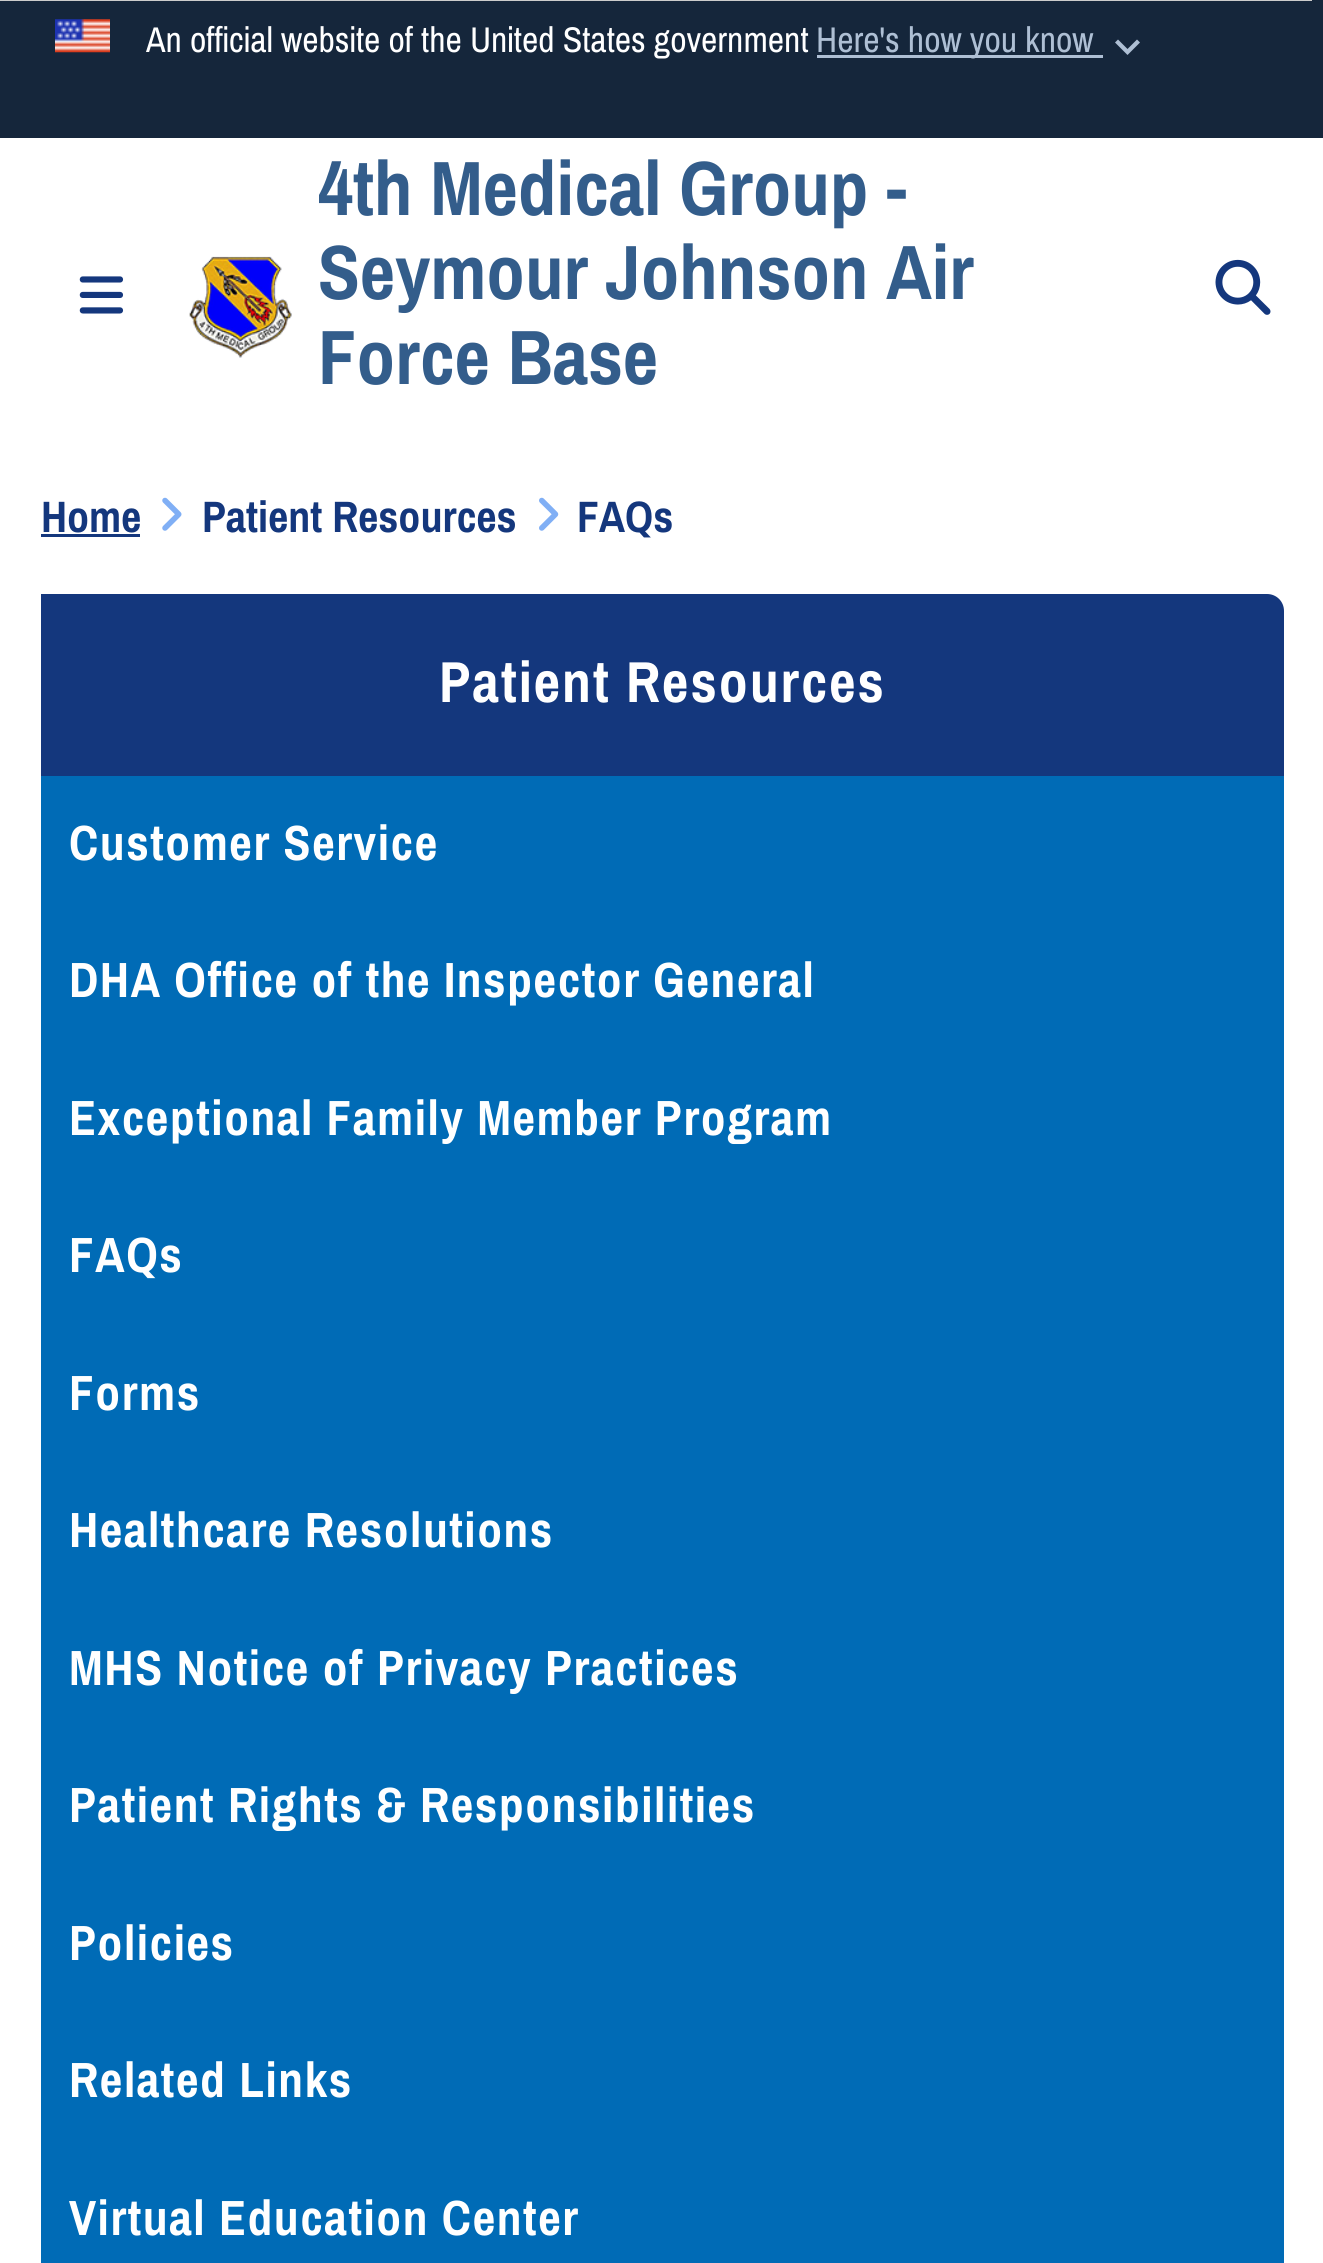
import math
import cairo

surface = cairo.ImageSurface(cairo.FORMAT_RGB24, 1323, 2263)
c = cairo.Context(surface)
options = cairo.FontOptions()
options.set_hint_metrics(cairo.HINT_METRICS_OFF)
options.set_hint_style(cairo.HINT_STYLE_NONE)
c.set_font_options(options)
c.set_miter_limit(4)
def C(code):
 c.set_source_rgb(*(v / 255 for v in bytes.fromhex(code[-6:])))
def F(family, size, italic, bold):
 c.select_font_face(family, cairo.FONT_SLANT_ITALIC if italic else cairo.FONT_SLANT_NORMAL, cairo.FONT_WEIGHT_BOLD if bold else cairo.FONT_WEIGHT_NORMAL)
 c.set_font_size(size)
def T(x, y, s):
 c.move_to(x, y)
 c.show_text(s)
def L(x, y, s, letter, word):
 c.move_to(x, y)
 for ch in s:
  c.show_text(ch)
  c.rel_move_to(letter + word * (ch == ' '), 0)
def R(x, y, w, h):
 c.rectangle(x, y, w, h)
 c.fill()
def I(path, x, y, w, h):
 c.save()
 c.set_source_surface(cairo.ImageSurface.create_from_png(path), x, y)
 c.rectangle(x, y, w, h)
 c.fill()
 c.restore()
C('ffffff')
c.paint()
C('15263b')
R(0,0,1323,138)
I('1.png',55,19,55,34)
F('Archivo Narrow',35.75,0,0)
C('ffffff')
T(146,52,'An official website of the United States government')
C('aebfd4')
R(817,55,286,3)
T(816,52,'Here\'s how you know')
c.new_path()
c.move_to(1137,39.5)
c.line_to(1127.5,49)
c.line_to(1118,39.5)
c.line_to(1115,42.5)
c.line_to(1127.5,55)
c.line_to(1140,42.5)
c.close_path()
c.fill()
C('cccccc')
R(0,0,1312,1)
I('2.png',79,276,45,38)
I('3.png',189,256,103,102)
c.save()
c.rectangle(319,149,836,253)
c.clip()
F('Archivo Narrow',77,0,1)
C('335d8b')
T(318,215,'4th Medical Group -')
c.restore()
F('Archivo Narrow',77,0,1)
C('335d8b')
T(318,299,'Seymour Johnson Air')
T(318,384,'Force Base')
I('4.png',1215,259,56,56)
F('Archivo Narrow',44,0,1)
C('14377d')
T(41,532,'Home')
R(41,534,99,3)
I('5.png',162,497,20,34)
T(202,532,'Patient Resources')
I('6.png',539,497,20,34)
T(577,532,'FAQs')
c.new_path()
c.move_to(41,594)
c.line_to(1267,594)
c.curve_to(1276.5,594,1284,601.5,1284,611)
c.line_to(1284,776)
c.line_to(41,776)
c.close_path()
c.fill()
F('Archivo Narrow',57.75,0,1)
C('ffffff')
L(439,702,'Patient Resources',2,0)
C('006bb6')
R(41,776,1243,1487)
F('Archivo Narrow',49.5,0,1)
C('ffffff')
L(69,860,'Customer Service',1.55,0)
L(69,997,'DHA Office of the Inspector General',1.55,0)
L(69,1135,'Exceptional Family Member Program',1.55,0)
L(69,1272,'FAQs',1.55,0)
L(69,1410,'Forms',1.55,0)
L(69,1547,'Healthcare Resolutions',1.55,0)
L(69,1685,'MHS Notice of Privacy Practices',1.55,0)
L(69,1822,'Patient Rights & Responsibilities',1.55,0)
L(69,1960,'Policies',1.55,0)
L(69,2097,'Related Links',1.55,0)
L(69,2235,'Virtual Education Center',1.55,0)
surface.write_to_png('o.png')
